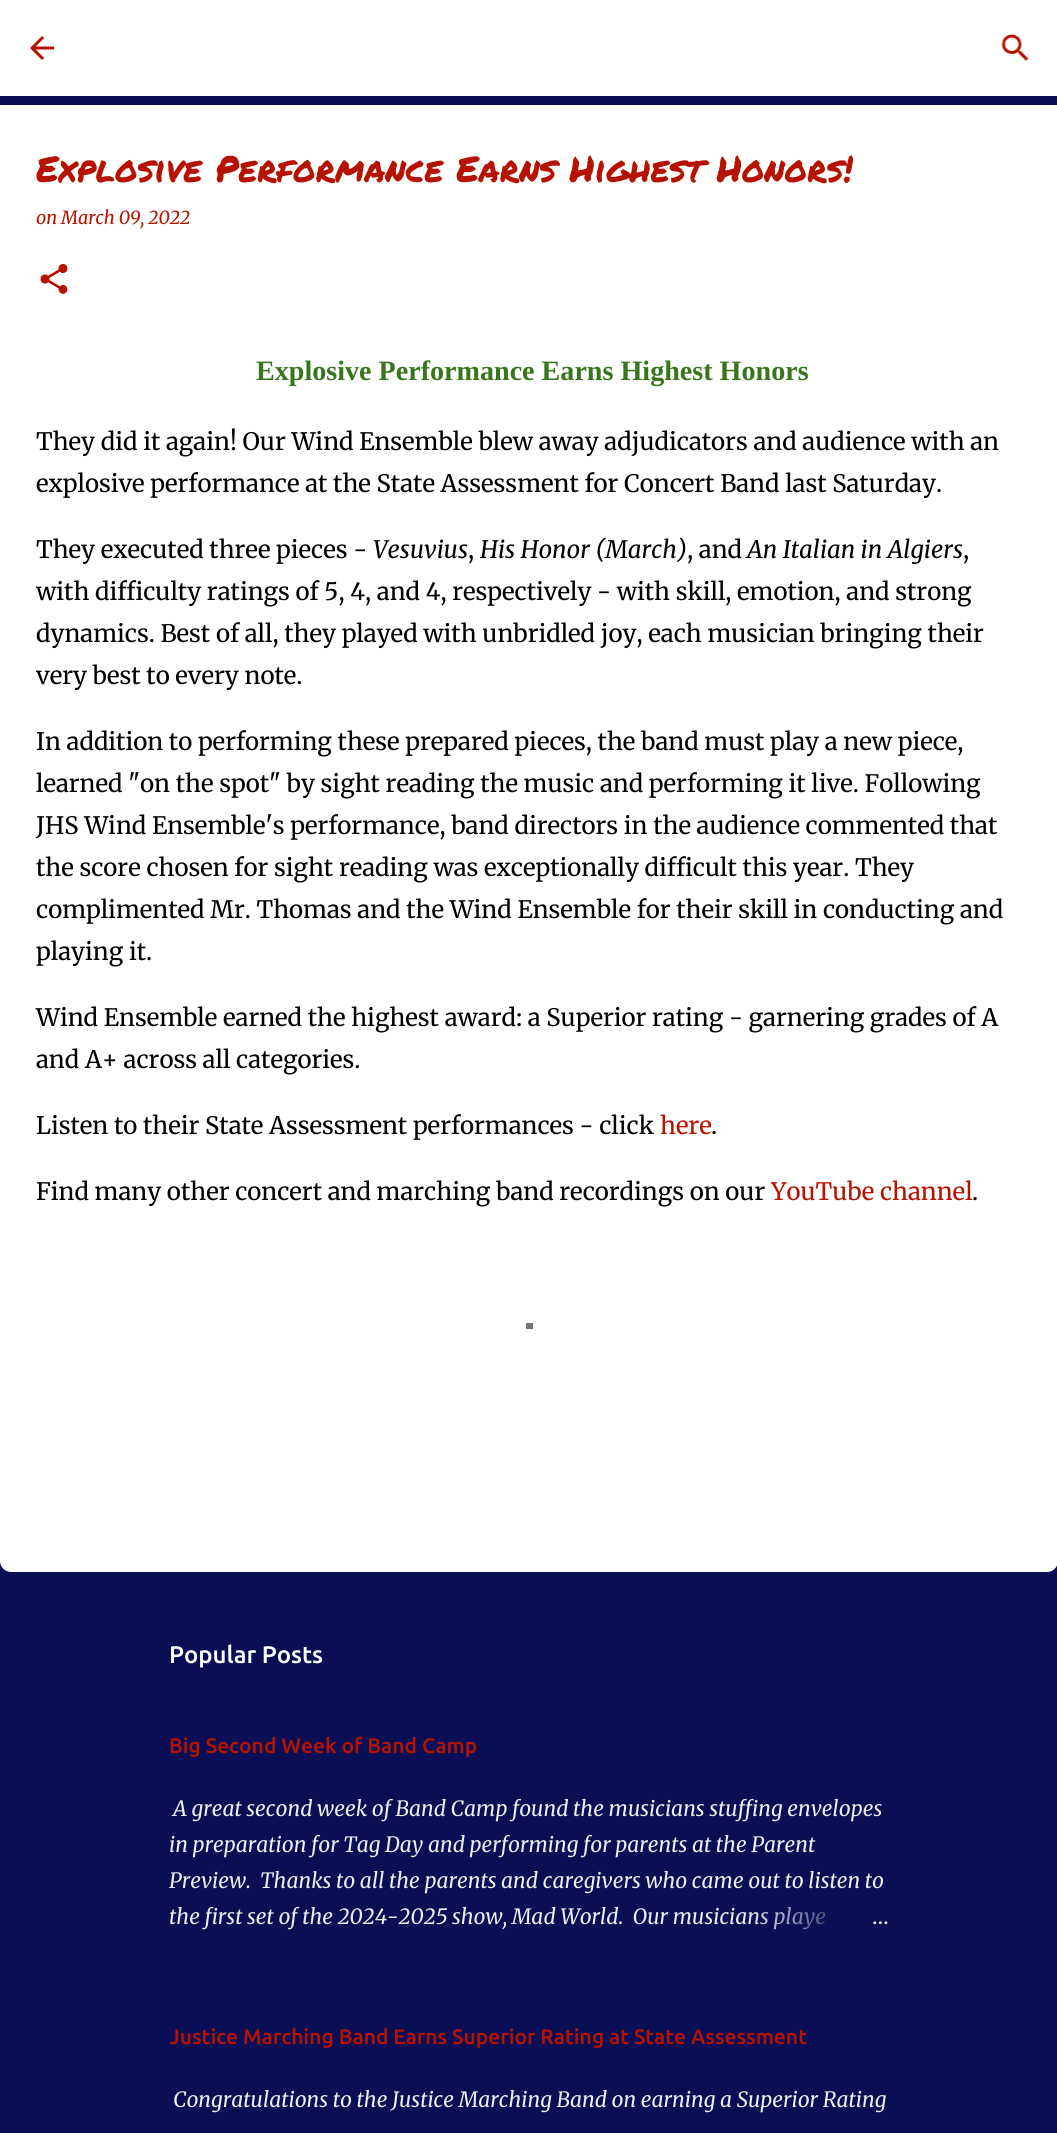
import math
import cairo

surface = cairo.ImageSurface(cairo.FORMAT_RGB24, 1057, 2133)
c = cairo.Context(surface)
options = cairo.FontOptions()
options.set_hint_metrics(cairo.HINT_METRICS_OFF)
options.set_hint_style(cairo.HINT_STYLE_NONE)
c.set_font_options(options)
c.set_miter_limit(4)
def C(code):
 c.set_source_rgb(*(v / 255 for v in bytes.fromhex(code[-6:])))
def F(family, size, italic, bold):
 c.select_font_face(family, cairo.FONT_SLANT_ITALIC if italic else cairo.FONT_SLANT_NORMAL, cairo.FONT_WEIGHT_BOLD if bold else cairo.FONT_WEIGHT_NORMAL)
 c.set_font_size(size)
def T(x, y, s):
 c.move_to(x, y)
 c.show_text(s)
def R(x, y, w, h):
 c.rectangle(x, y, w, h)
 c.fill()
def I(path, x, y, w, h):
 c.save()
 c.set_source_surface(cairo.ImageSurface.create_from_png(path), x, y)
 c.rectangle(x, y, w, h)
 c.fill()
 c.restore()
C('0a0e55')
c.paint()
C('ffffff')
R(0,0,1057,96)
I('1.png',30,36,24,24)
I('2.png',1001,34,28,27)
R(0,105,1057,1274)
F('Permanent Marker',36,0,0)
C('b51200')
T(36,182,'Explosive Performance Earns Highest Honors!')
F('Merriweather Light',18,1,0)
T(36,224,'on March 09, 2022')
I('3.png',40,264,28,30)
F('Liberation Serif',28.1,0,1)
C('38761d')
T(256,380,'Explosive Performance Earns Highest Honors')
F('Merriweather Light',24,0,0)
C('000000')
T(36,450,'They did it again! Our Wind Ensemble blew away adjudicators and audience with an')
T(36,492,'explosive performance at the State Assessment for Concert Band last Saturday.')
T(36,558,'They executed three pieces -')
F('Merriweather Light',24,1,0)
T(373,558,'Vesuvius')
F('Merriweather Light',24,0,0)
T(468,558,',')
F('Merriweather Light',24,1,0)
T(480,558,'His Honor (March)')
F('Merriweather Light',24,0,0)
T(687,558,', and')
F('Merriweather Light',24,1,0)
T(747,558,'An Italian in Algiers')
F('Merriweather Light',24,0,0)
T(963,558,',')
T(36,600,'with difficulty ratings of 5, 4, and 4, respectively - with skill, emotion, and strong')
T(36,642,'dynamics. Best of all, they played with unbridled joy, each musician bringing their')
T(36,684,'very best to every note.')
T(36,750,'In addition to performing these prepared pieces, the band must play a new piece,')
T(36,792,'learned "on the spot" by sight reading the music and performing it live. Following')
T(36,834,'JHS Wind Ensemble\'s performance, band directors in the audience commented that')
T(36,876,'the score chosen for sight reading was exceptionally difficult this year. They')
T(36,918,'complimented Mr. Thomas and the Wind Ensemble for their skill in conducting and')
T(36,960,'playing it.')
T(36,1026,'Wind Ensemble earned the highest award: a Superior rating - garnering grades of A')
T(36,1068,'and A+ across all categories.')
T(36,1134,'Listen to their State Assessment performances - click')
C('b51200')
T(660,1134,'here')
C('000000')
T(711,1134,'.')
T(36,1200,'Find many other concert and marching band recordings on our')
C('b51200')
T(771,1200,'YouTube channel')
C('000000')
T(972,1200,'.')
C('ffffff')
c.new_path()
c.move_to(0,1379)
c.line_to(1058,1379)
c.line_to(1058,1561)
c.curve_to(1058,1567,1053,1572,1047,1572)
c.line_to(11,1572)
c.curve_to(5,1572,0,1567,0,1561)
c.close_path()
c.fill()
F('Ubuntu Medium',24,0,0)
T(169,1663,'Popular Posts')
F('Ubuntu Medium',21,0,0)
C('b51200')
T(169,1753,'Big Second Week of Band Camp')
F('Merriweather Light',21,1,0)
C('ececec')
T(173,1816,'A great second week of Band Camp found the musicians stuffing envelopes')
T(169,1852,'in preparation for Tag Day and performing for parents at the Parent')
T(169,1888,'Preview.  Thanks to all the parents and caregivers who came out to listen to')
T(169,1924,'the first set of the 2024-2025 show, Mad World.  Our musicians playe')
gradient = cairo.LinearGradient(890,1917,746,1917)
gradient.add_color_stop_rgba(0,0.039,0.055,0.333,1)
gradient.add_color_stop_rgba(.2,0.039,0.055,0.333,1)
gradient.add_color_stop_rgba(1,0.039,0.055,0.333,0)
c.set_source(gradient)
R(748,1906,77,24)
F('Merriweather Light',21,0,0)
C('ececec')
T(872,1924,'…')
c.save()
c.rectangle(170,1619,720,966)
c.clip()
F('Ubuntu Medium',21,0,0)
C('b51200')
T(169,2044,'Justice Marching Band Earns Superior Rating at State Assessment')
c.restore()
F('Merriweather Light',21,1,0)
T(173,2107,'Congratulations to the Justice Marching Band on earning a Superior Rating')
C('757575')
R(526,1323,7,6)
surface.write_to_png('o.png')
